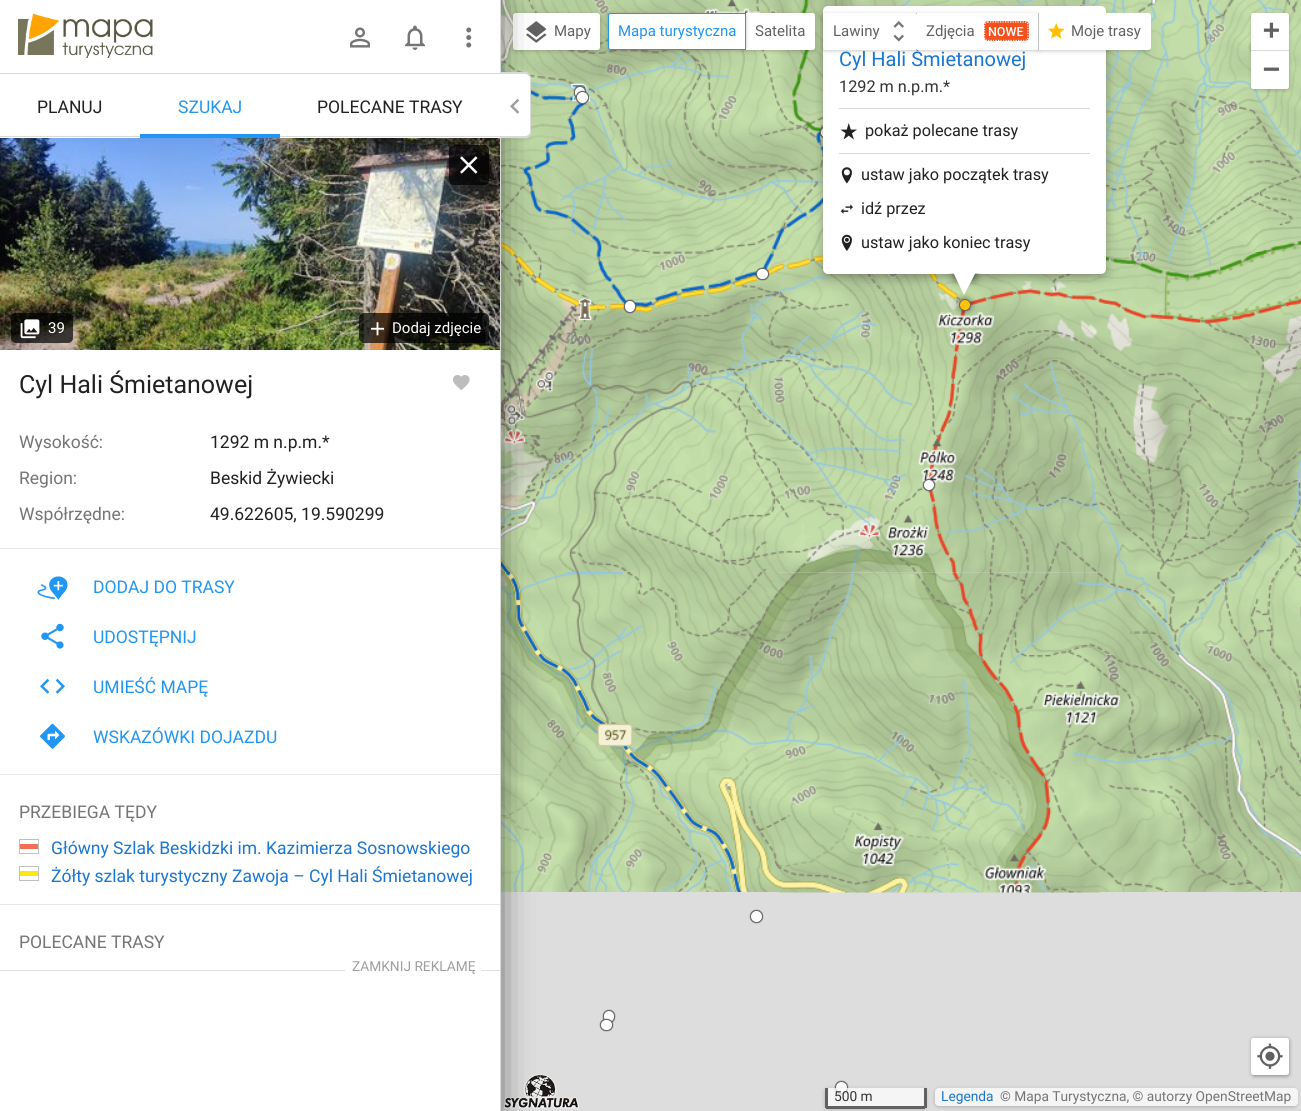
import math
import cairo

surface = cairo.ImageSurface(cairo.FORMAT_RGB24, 1301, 1111)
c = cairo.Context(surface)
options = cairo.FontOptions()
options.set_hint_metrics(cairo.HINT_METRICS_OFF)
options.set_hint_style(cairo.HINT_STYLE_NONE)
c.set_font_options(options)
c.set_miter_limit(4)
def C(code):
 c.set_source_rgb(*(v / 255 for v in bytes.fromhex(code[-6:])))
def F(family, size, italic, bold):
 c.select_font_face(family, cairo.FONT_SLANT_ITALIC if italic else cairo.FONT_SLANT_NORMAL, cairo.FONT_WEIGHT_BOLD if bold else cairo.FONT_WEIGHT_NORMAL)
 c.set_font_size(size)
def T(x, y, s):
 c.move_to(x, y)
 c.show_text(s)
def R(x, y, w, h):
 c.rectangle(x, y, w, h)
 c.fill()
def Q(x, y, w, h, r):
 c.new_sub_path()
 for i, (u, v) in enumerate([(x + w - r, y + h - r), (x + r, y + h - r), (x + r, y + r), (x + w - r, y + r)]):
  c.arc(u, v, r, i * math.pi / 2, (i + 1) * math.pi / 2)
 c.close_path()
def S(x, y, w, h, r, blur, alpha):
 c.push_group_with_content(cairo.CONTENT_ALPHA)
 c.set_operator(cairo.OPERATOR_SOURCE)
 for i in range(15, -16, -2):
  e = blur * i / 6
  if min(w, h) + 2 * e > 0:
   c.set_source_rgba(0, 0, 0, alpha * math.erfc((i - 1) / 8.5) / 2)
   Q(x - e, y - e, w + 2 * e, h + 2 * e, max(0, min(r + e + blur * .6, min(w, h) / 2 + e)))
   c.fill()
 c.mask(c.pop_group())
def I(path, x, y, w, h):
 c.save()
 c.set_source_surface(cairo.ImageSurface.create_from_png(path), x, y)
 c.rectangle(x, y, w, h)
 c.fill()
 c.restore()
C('dddddd')
c.paint()
I('20.png',501,0,279,252)
C('000000')
S(514,15,85,35,1,2.5,.3)
C('ffffff')
Q(513,13,87,37,2.5)
c.fill()
I('15.png',526,21,21,22)
I('18.png',504,1074,75,35)
I('23.png',501,252,279,320)
I('26.png',501,572,279,320)
C('000000')
S(-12,0,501,1111,0,19,1)
C('ffffff')
R(0,0,500,1111)
C('d9d9d9')
R(500,0,1,1111)
R(0,73,500,1)
I('1.png',18,13,135,45)
I('2.png',350,27,20,21)
I('3.png',405,25,20,25)
I('4.png',466,27,6,21)
R(0,136,500,1)
F('Roboto',17.5,0,0)
C('212121')
T(37,113,'PLANUJ')
C('2196f3')
R(140,134,140,4)
T(178,113,'SZUKAJ')
C('212121')
T(317,113,'POLECANE TRASY')
I('6.png',0,138,500,212)
c.set_source_rgba(0,0,0,0.7)
Q(449,145,40,40,5)
c.fill()
I('5.png',460,156,18,18)
Q(11,313,62,30,5)
c.fill()
I('7.png',20,319,20,20)
F('Roboto',15,0,0)
C('ffffff')
T(48,333,'39')
c.set_source_rgba(0,0,0,0.7)
Q(359,313,130,30,5)
c.fill()
I('8.png',370,322,15,14)
C('ffffff')
T(392,333,'Dodaj zdjęcie')
F('Roboto',25,0,0)
C('212121')
T(19,393,'Cyl Hali Śmietanowej')
I('9.png',453,375,17,16)
C('e8e8e8')
R(0,548,500,1)
F('Roboto',17.5,0,0)
C('757575')
T(19,448,'Wysokość:')
C('212121')
T(210,448,'1292 m n.p.m.*')
C('757575')
T(19,484,'Region:')
C('212121')
T(210,484,'Beskid Żywiecki')
C('757575')
T(19,520,'Współrzędne:')
C('212121')
T(210,520,'49.622605, 19.590299')
C('e8e8e8')
R(0,774,500,1)
I('10.png',37,576,31,24)
C('2196f3')
T(93,593,'DODAJ DO TRASY')
I('11.png',41,623,23,26)
T(93,643,'UDOSTĘPNIJ')
I('12.png',40,678,25,16)
T(93,693,'UMIEŚĆ MAPĘ')
I('13.png',40,723,25,26)
T(93,743,'WSKAZÓWKI DOJAZDU')
C('e8e8e8')
R(0,904,500,1)
C('757575')
T(19,818,'PRZEBIEGA TĘDY')
c.rectangle(19.5,839.5,19,14)
C('c0c0c0')
c.set_line_width(1)
c.stroke()
C('f46f55')
R(20,844,18,5)
C('1976d2')
T(51,854,'Główny Szlak Beskidzki im. Kazimierza Sosnowskiego')
c.rectangle(19.5,866.5,19,14)
C('c0c0c0')
c.stroke()
C('ffe709')
R(20,871,18,5)
C('1976d2')
T(51,882,'Żółty szlak turystyczny Zawoja – Cyl Hali Śmietanowej')
C('757575')
T(19,948,'POLECANE TRASY')
C('ffffff')
c.new_path()
c.move_to(500,74)
c.line_to(526,74)
c.curve_to(528,74,530,76,530,78)
c.line_to(530,132)
c.curve_to(530,134,528,136,526,136)
c.line_to(500,136)
c.close_path()
c.fill()
C('d9d9d9')
c.set_fill_rule(cairo.FILL_RULE_EVEN_ODD)
c.new_path()
c.move_to(500,72)
c.line_to(526,72)
c.curve_to(529,72,531,75,531,78)
c.line_to(531,132)
c.curve_to(531,135,529,138,526,138)
c.line_to(500,138)
c.close_path()
c.move_to(500,74)
c.line_to(526,74)
c.curve_to(528,74,530,75,530,78)
c.line_to(530,132)
c.curve_to(530,135,528,136,526,136)
c.line_to(500,136)
c.close_path()
c.fill()
I('14.png',510,98,10,16)
C('e0e0e0')
R(0,970,500,1)
C('ffffff')
R(345,970,136,1)
F('Roboto',13.75,0,0)
C('9e9e9e')
T(352,971,'ZAMKNIJ REKLAMĘ')
F('Roboto',15,0,0)
C('616161')
T(554,36,'Mapy')
I('21.png',780,0,320,253)
C('000000')
S(746,15,68,35,1,2.5,.3)
I('22.png',1100,0,201,252)
I('24.png',780,252,320,321)
I('25.png',1100,252,201,320)
S(820,126,13,13,6.5,.5,.5)
C('ffffff')
c.arc(826.5,132.5,6,0,2 * math.pi)
c.fill_preserve()
C('666666')
c.stroke()
C('000000')
S(825,14,279,262,2.5,6,.4)
C('ffffff')
c.new_path()
c.move_to(745,13)
c.line_to(812.5,13)
c.curve_to(814,13,815,14,815,15.5)
c.line_to(815,47.5)
c.curve_to(815,49,814,50,812.5,50)
c.line_to(745,50)
c.close_path()
c.fill()
C('000000')
S(609,15,136,35,1,2.5,.3)
C('ffffff')
c.new_path()
c.move_to(610.5,13.5)
c.line_to(745.5,13.5)
c.line_to(745.5,49.5)
c.line_to(610.5,49.5)
c.curve_to(609.5,49.5,608.5,48.5,608.5,47.5)
c.line_to(608.5,15.5)
c.curve_to(608.5,14.5,609.5,13.5,610.5,13.5)
c.close_path()
c.fill_preserve()
C('2196f3')
c.stroke()
T(618,36,'Mapa turystyczna')
C('616161')
T(755,36,'Satelita')
C('ffffff')
Q(823,6,283,268,5)
c.fill()
C('000000')
S(824,15,92,35,1,2.5,.3)
F('Roboto',20,0,0)
C('1976d2')
T(839,66,'Cyl Hali Śmietanowej')
C('ffffff')
c.new_path()
c.move_to(825.5,13)
c.line_to(918,13)
c.line_to(918,50)
c.line_to(825.5,50)
c.curve_to(824,50,823,49,823,47.5)
c.line_to(823,15.5)
c.curve_to(823,14,824,13,825.5,13)
c.close_path()
c.fill()
C('000000')
S(918,15,120,35,0,2.5,.3)
C('c0c0c0')
R(916,13,1,37)
F('Roboto',15,0,0)
C('616161')
T(833,36,'Lawiny')
I('16.png',893,21,11,21)
C('ffffff')
R(913,14,4,35)
R(917,13,121,37)
C('616161')
T(926,36,'Zdjęcia')
C('f4511e')
Q(984,21,45,20,4)
c.fill()
c.new_path()
c.move_to(987.5,22)
c.line_to(1025,22)
c.curve_to(1026.5,22,1028,23.5,1028,25)
c.line_to(1028,37.5)
c.curve_to(1028,39,1026.5,40.5,1025,40.5)
c.line_to(987.5,40.5)
c.curve_to(986,40.5,984.5,39,984.5,37.5)
c.line_to(984.5,25)
c.curve_to(984.5,23.5,986,22,987.5,22)
c.close_path()
C('ffffff')
c.set_line_width(1.2)
c.set_dash([1.25,1.25])
c.stroke()
F('Roboto Medium',12.5,0,0)
T(988,36,'NOWE')
c.save()
c.set_fill_rule(cairo.FILL_RULE_WINDING)
c.rectangle(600,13,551,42)
c.clip()
C('000000')
S(1039,15,111,35,1,2.5,.3)
c.restore()
R(1034,14,4,35)
c.new_path()
c.move_to(1038,13)
c.line_to(1148.5,13)
c.curve_to(1150,13,1151,14,1151,15.5)
c.line_to(1151,47.5)
c.curve_to(1151,49,1150,50,1148.5,50)
c.line_to(1038,50)
c.close_path()
c.fill()
C('c0c0c0')
R(1038,13,1,37)
I('17.png',1048,23,17,16)
F('Roboto',15,0,0)
C('616161')
T(1071,36,'Moje trasy')
C('000000')
S(1253,15,35,74,1,2.5,.3)
C('ffffff')
c.new_path()
c.move_to(1253.5,13)
c.line_to(1286.5,13)
c.curve_to(1288,13,1289,14,1289,15.5)
c.line_to(1289,51)
c.line_to(1251,51)
c.line_to(1251,15.5)
c.curve_to(1251,14,1252,13,1253.5,13)
c.close_path()
c.fill()
C('d9d9d9')
R(1251,50,38,1)
F('DejaVu Sans Mono',28,0,1)
C('616161')
T(1263,39,'+')
C('ffffff')
c.new_path()
c.move_to(1251,51)
c.line_to(1289,51)
c.line_to(1289,86.5)
c.curve_to(1289,88,1288,89,1286.5,89)
c.line_to(1253.5,89)
c.curve_to(1252,89,1251,88,1251,86.5)
c.close_path()
c.fill()
C('616161')
T(1263,78,'−')
C('000000')
S(1253,1040,35,35,1,2.5,.3)
S(1253,1040,35,35,1,2.5,.3)
C('ffffff')
Q(1251,1038,38,37,2.5)
c.fill()
I('19.png',1257,1043,26,26)
C('000000')
S(835,1081,13,13,6.5,.5,.5)
C('ffffff')
c.arc(841.5,1087.5,6,0,2 * math.pi)
c.fill_preserve()
C('666666')
c.set_line_width(1)
c.set_dash([])
c.stroke()
c.save()
c.new_path()
c.move_to(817,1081)
c.line_to(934,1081)
c.line_to(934,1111)
c.line_to(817,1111)
c.close_path()
c.move_to(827.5,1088)
c.line_to(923.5,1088)
c.curve_to(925,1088,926,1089,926,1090.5)
c.line_to(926,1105.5)
c.curve_to(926,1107,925,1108,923.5,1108)
c.line_to(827.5,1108)
c.curve_to(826,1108,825,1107,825,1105.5)
c.line_to(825,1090.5)
c.curve_to(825,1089,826,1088,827.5,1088)
c.close_path()
c.clip()
C('000000')
S(826,1090,99,18,1,2.5,.3)
c.restore()
c.set_source_rgba(1,1,1,0.7)
c.new_path()
c.move_to(825,1088)
c.line_to(926,1088)
c.line_to(926,1106.5)
c.curve_to(926,1108,925,1109,923.5,1109)
c.line_to(827.5,1109)
c.curve_to(826,1109,825,1108,825,1106.5)
c.close_path()
c.fill()
C('616161')
R(924,1088,3,20)
R(826,1106,99,3)
R(825,1088,3,20)
F('Roboto',13.75,0,0)
C('333333')
T(834,1101,'500 m')
c.save()
c.new_path()
c.move_to(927,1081)
c.line_to(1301,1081)
c.line_to(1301,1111)
c.line_to(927,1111)
c.close_path()
c.move_to(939,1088)
c.line_to(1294,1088)
c.curve_to(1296,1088,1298,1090,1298,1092)
c.line_to(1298,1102)
c.curve_to(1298,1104,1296,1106,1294,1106)
c.line_to(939,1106)
c.curve_to(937,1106,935,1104,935,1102)
c.line_to(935,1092)
c.curve_to(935,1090,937,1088,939,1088)
c.close_path()
c.clip()
C('000000')
S(936,1090,360,16,2.5,2.5,.3)
c.restore()
c.set_source_rgba(1,1,1,0.7)
Q(935,1088,363,18,4)
c.fill()
C('1976d2')
T(941,1101,'Legenda')
C('757575')
T(1000,1101,'© Mapa Turystyczna, © autorzy OpenStreetMap')
I('27.png',780,572,320,321)
I('28.png',1100,572,201,320)
F('Roboto',16.25,0,0)
C('333333')
T(839,92,'1292 m n.p.m.*')
C('d9d9d9')
R(839,108,251,1)
I('29.png',840,123,17,17)
C('212121')
T(865,136,'pokaż polecane trasy')
C('d9d9d9')
R(839,153,251,1)
I('30.png',841,167,11,17)
C('212121')
T(861,180,'ustaw jako początek trasy')
I('31.png',840,204,13,10)
T(861,214,'idź przez')
I('32.png',841,234,11,17)
T(861,248,'ustaw jako koniec trasy')
c.save()
c.set_fill_rule(cairo.FILL_RULE_WINDING)
c.rectangle(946,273,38,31)
c.clip()
C('000000')
S(956,261,18,18,0,4.5,.7)
c.restore()
C('000000')
S(959,299,12,12,6,4,.5)
c.save()
c.set_fill_rule(cairo.FILL_RULE_WINDING)
c.rectangle(946,273,38,31)
c.clip()
C('ffffff')
c.new_path()
c.move_to(964,245)
c.line_to(977,270)
c.line_to(964,295)
c.line_to(952,270)
c.close_path()
c.fill()
c.restore()
S(574,86,12,13,6,.5,.5)
C('ffffff')
Q(574.5,86.5,11,12,5.5)
c.fill_preserve()
C('666666')
c.stroke()
C('000000')
S(576,91,13,13,6.5,.5,.5)
C('ffffff')
c.arc(582.5,97.5,6,0,2 * math.pi)
c.fill_preserve()
C('666666')
c.stroke()
C('000000')
S(756,268,13,12,6,.5,.5)
C('ffffff')
Q(756.5,268.5,12,11,5.5)
c.fill_preserve()
C('666666')
c.stroke()
C('000000')
S(624,300,12,13,6,.5,.5)
C('ffffff')
Q(624.5,300.5,11,12,5.5)
c.fill_preserve()
C('666666')
c.stroke()
C('ffc107')
c.arc(965,305,5.5,0,2 * math.pi)
c.fill_preserve()
C('666666')
c.stroke()
C('000000')
S(923,479,12,12,6,.5,.5)
C('ffffff')
c.arc(929,485,5.5,0,2 * math.pi)
c.fill_preserve()
C('666666')
c.stroke()
C('000000')
S(750,910,13,13,6.5,.5,.5)
C('ffffff')
c.arc(756.5,916.5,6,0,2 * math.pi)
c.fill_preserve()
C('666666')
c.stroke()
C('000000')
S(603,1010,12,13,6,.5,.5)
C('ffffff')
Q(603.5,1010.5,11,12,5.5)
c.fill_preserve()
C('666666')
c.stroke()
C('000000')
S(600,1019,13,12,6,.5,.5)
C('ffffff')
Q(600.5,1019.5,12,11,5.5)
c.fill_preserve()
C('666666')
c.stroke()
surface.write_to_png('o.png')
